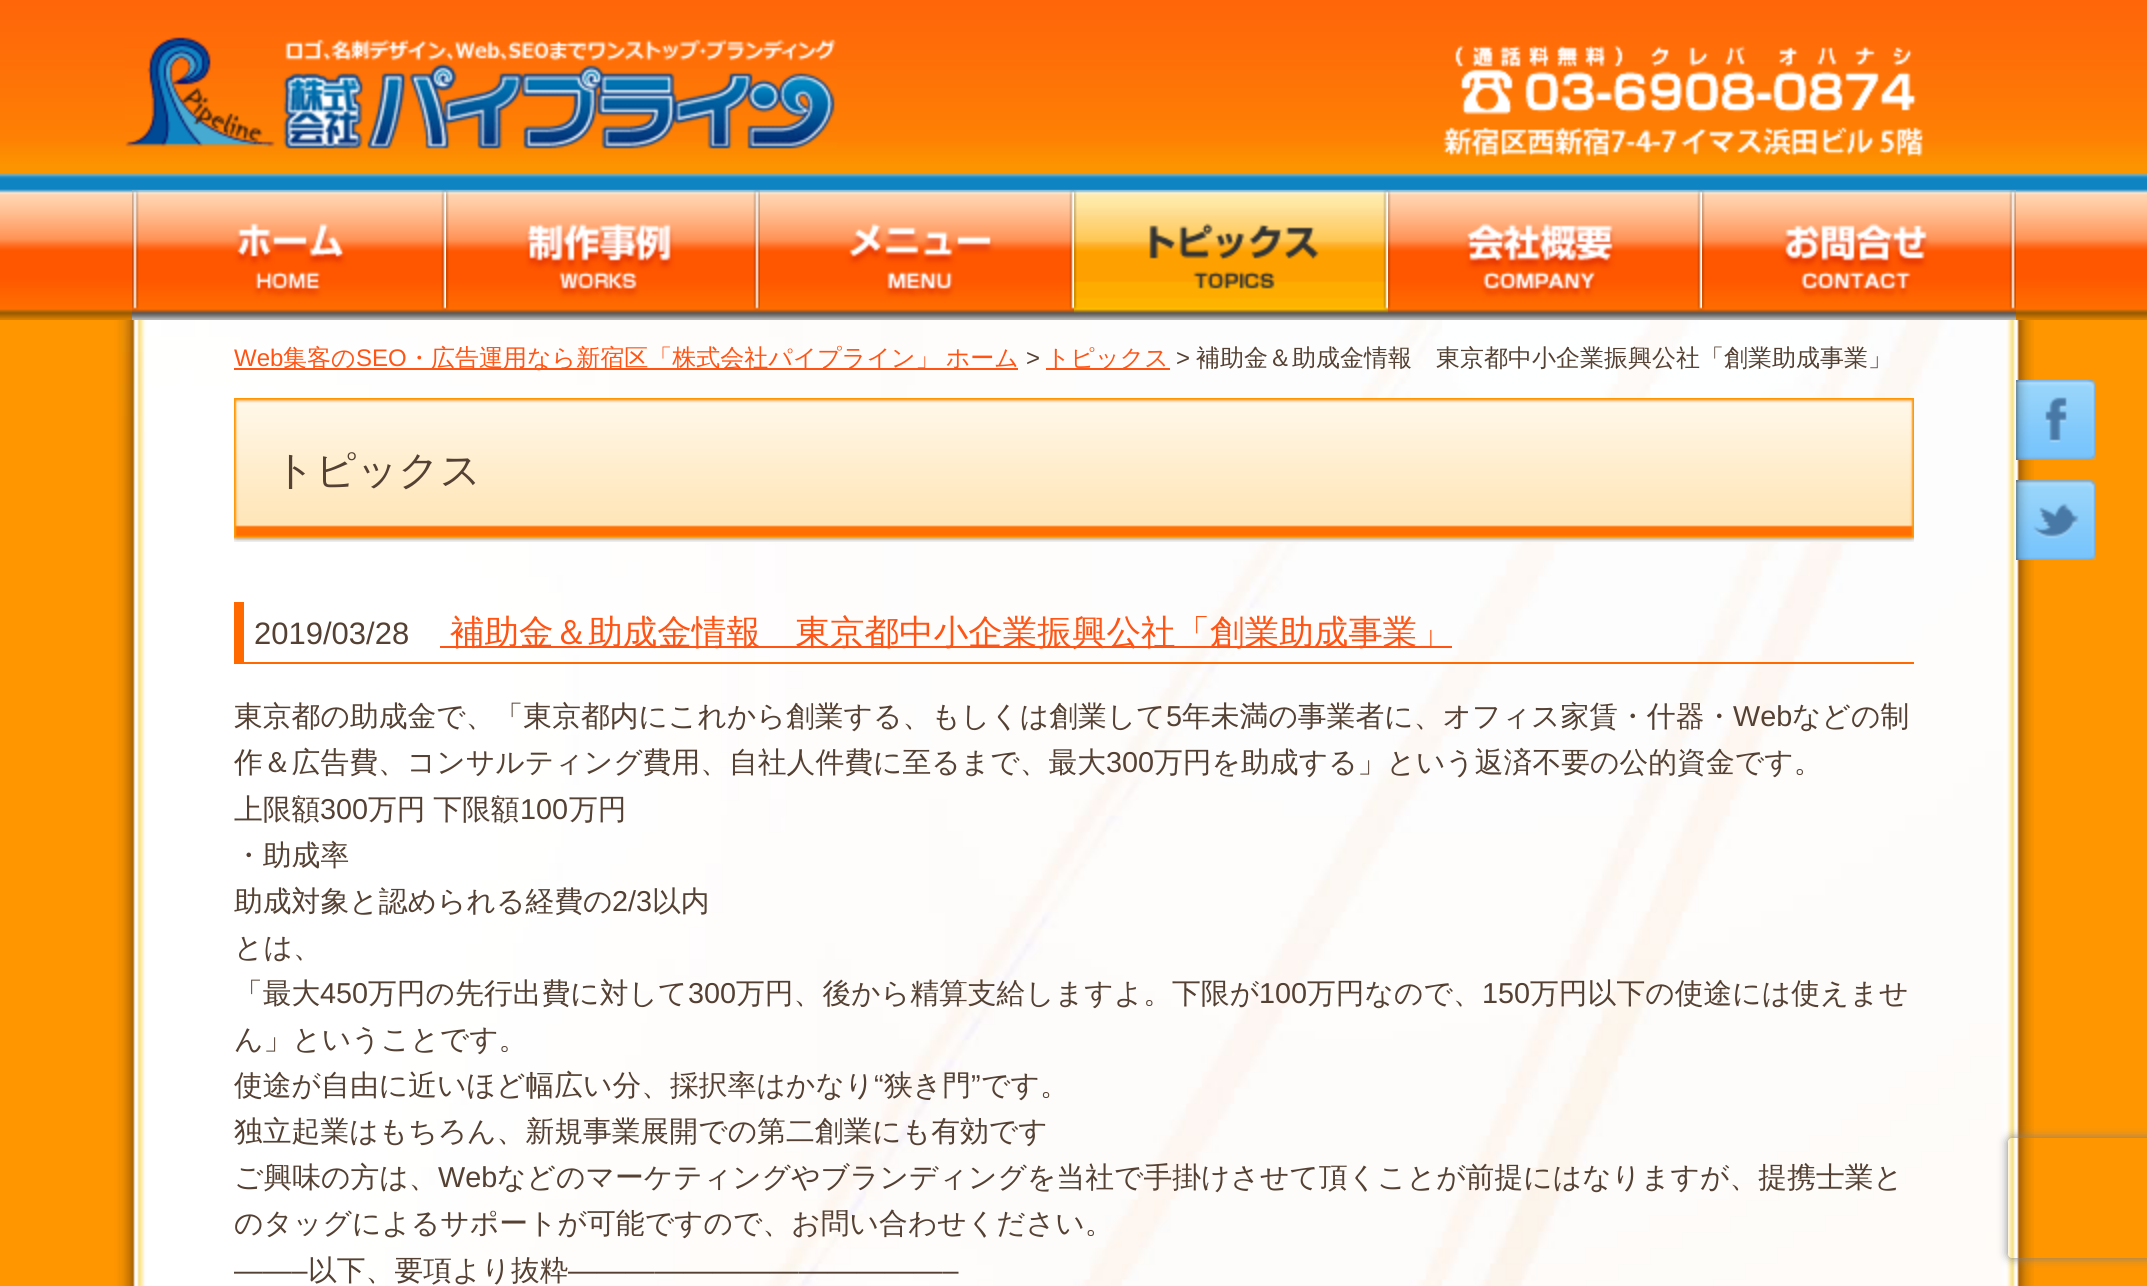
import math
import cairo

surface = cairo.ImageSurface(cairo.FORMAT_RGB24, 2147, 1286)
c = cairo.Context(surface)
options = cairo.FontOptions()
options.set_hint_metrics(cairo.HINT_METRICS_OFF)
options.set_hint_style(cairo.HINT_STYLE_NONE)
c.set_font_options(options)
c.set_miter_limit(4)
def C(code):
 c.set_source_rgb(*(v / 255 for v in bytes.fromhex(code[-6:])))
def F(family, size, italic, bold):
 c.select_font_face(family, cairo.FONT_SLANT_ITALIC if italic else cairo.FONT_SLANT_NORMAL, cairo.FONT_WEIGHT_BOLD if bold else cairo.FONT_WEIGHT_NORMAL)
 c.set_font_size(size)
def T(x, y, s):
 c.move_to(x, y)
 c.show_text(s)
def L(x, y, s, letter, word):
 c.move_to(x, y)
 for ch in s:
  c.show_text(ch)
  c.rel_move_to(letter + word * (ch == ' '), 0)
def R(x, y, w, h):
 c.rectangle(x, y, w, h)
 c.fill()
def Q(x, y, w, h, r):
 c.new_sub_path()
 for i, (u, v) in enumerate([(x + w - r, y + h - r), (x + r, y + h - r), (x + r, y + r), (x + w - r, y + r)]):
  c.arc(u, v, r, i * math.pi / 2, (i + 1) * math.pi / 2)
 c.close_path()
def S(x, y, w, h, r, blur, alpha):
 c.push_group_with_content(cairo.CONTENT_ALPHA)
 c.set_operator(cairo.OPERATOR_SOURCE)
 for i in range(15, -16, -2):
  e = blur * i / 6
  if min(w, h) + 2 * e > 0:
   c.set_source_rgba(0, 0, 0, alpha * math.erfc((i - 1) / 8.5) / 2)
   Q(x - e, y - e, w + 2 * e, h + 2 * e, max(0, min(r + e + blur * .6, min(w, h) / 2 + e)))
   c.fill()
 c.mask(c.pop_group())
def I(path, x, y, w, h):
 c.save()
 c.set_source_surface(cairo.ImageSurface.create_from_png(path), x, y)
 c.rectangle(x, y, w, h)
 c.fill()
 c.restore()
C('ff9600')
c.paint()
I('1.png',0,0,2147,320)
I('2.png',114,320,6,966)
I('3.png',114,0,1920,320)
I('4.png',125,37,712,112)
I('5.png',1443,45,481,112)
C('ffffff')
R(132,309,1884,11)
I('6.png',132,190,314,130)
I('7.png',446,190,314,130)
I('8.png',760,190,314,130)
I('9.png',1074,190,314,130)
I('10.png',1388,190,314,130)
I('11.png',1702,190,314,130)
I('14.png',120,320,1914,966)
I('12.png',2016,380,80,80)
I('13.png',2016,480,80,80)
F('Liberation Sans',24,0,0)
C('ff5414')
T(234,366,'Web')
R(234,368,784,2)
F('WenQuanYi Zen Hei Medium',24,0,0)
T(283,366,'集客の')
F('Liberation Sans',24,0,0)
T(356,366,'SEO')
F('WenQuanYi Zen Hei Medium',24,0,0)
L(407,366,'・広告運用なら新宿区「株式会社パイプライン」 ホーム',0,-1)
F('Liberation Sans',24,0,0)
C('554133')
T(1026,366,'>')
C('ff5414')
R(1046,368,124,2)
F('WenQuanYi Zen Hei Medium',24,0,0)
T(1046,366,'トピックス')
F('Liberation Sans',24,0,0)
C('554133')
T(1176,366,'>')
F('WenQuanYi Zen Hei Medium',24,0,0)
T(1196,366,'補助金＆助成金情報　東京都中小企業振興公社「創業助成事業」')
I('15.png',234,398,1680,144)
F('WenQuanYi Zen Hei Medium',40.5,0,0)
T(274,484,'トピックス')
C('ff6900')
R(244,662,1670,2)
R(234,602,10,62)
F('Liberation Sans',31,0,0)
C('554133')
T(254,644,'2019/03/28')
C('ff5414')
R(440,646,1012,2)
F('WenQuanYi Zen Hei Medium',34.55,0,0)
T(450,644,'補助金＆助成金情報　東京都中小企業振興公社「創業助成事業」')
F('WenQuanYi Zen Hei Medium',28.8,0,0)
C('554133')
T(234,726,'東京都の助成金で、「東京都内にこれから創業する、もしくは創業して')
F('Liberation Sans',28.8,0,0)
T(1166,726,'5')
F('WenQuanYi Zen Hei Medium',28.8,0,0)
T(1182,726,'年未満の事業者に、オフィス家賃・什器・')
F('Liberation Sans',28.8,0,0)
T(1733,726,'Web')
F('WenQuanYi Zen Hei Medium',28.8,0,0)
T(1792,726,'などの制')
T(234,772,'作＆広告費、コンサルティング費用、自社人件費に至るまで、最大')
F('Liberation Sans',28.8,0,0)
T(1106,772,'300')
F('WenQuanYi Zen Hei Medium',28.8,0,0)
T(1154,772,'万円を助成する」という返済不要の公的資金です。')
T(234,819,'上限額')
F('Liberation Sans',28.8,0,0)
T(320,819,'300')
F('WenQuanYi Zen Hei Medium',28.8,0,0)
L(368,819,'万円 下限額',0,-1)
F('Liberation Sans',28.8,0,0)
T(520,819,'100')
F('WenQuanYi Zen Hei Medium',28.8,0,0)
T(569,819,'万円')
T(234,865,'・助成率')
T(234,911,'助成対象と認められる経費の')
F('Liberation Sans',28.8,0,0)
T(612,911,'2/3')
F('WenQuanYi Zen Hei Medium',28.8,0,0)
T(652,911,'以内')
T(234,957,'とは、')
T(234,1003,'「最大')
F('Liberation Sans',28.8,0,0)
T(320,1003,'450')
F('WenQuanYi Zen Hei Medium',28.8,0,0)
T(368,1003,'万円の先行出費に対して')
F('Liberation Sans',28.8,0,0)
T(688,1003,'300')
F('WenQuanYi Zen Hei Medium',28.8,0,0)
T(736,1003,'万円、後から精算支給しますよ。下限が')
F('Liberation Sans',28.8,0,0)
T(1259,1003,'100')
F('WenQuanYi Zen Hei Medium',28.8,0,0)
T(1307,1003,'万円なので、')
F('Liberation Sans',28.8,0,0)
T(1482,1003,'150')
F('WenQuanYi Zen Hei Medium',28.8,0,0)
T(1530,1003,'万円以下の使途には使えませ')
T(234,1049,'ん」ということです。')
T(234,1095,'使途が自由に近いほど幅広い分、採択率はかなり')
F('Liberation Sans',28.8,0,0)
T(874,1095,'“')
F('WenQuanYi Zen Hei Medium',28.8,0,0)
T(884,1095,'狭き門')
F('Liberation Sans',28.8,0,0)
T(971,1095,'”')
F('WenQuanYi Zen Hei Medium',28.8,0,0)
T(981,1095,'です。')
T(234,1141,'独立起業はもちろん、新規事業展開での第二創業にも有効です')
T(234,1187,'ご興味の方は、')
F('Liberation Sans',28.8,0,0)
T(438,1187,'Web')
F('WenQuanYi Zen Hei Medium',28.8,0,0)
T(497,1187,'などのマーケティングやブランディングを当社で手掛けさせて頂くことが前提にはなりますが、提携士業と')
T(234,1233,'のタッグによるサポートが可能ですので、お問い合わせください。')
F('Liberation Sans',28.8,0,0)
T(234,1280,'——–')
F('WenQuanYi Zen Hei Medium',28.8,0,0)
T(308,1280,'以下、要項より抜粋')
F('Liberation Sans',28.8,0,0)
T(568,1280,'—————————————–')
c.save()
c.set_fill_rule(cairo.FILL_RULE_EVEN_ODD)
c.new_path()
c.move_to(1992,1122)
c.line_to(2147,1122)
c.line_to(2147,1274)
c.line_to(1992,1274)
c.close_path()
c.move_to(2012,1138)
c.line_to(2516,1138)
c.curve_to(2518,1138,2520,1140,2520,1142)
c.line_to(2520,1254)
c.curve_to(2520,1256,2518,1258,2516,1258)
c.line_to(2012,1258)
c.curve_to(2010,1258,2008,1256,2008,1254)
c.line_to(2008,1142)
c.curve_to(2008,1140,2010,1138,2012,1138)
c.close_path()
c.clip()
C('808080')
S(2008,1138,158,120,4,5,1)
c.restore()
surface.write_to_png('o.png')
